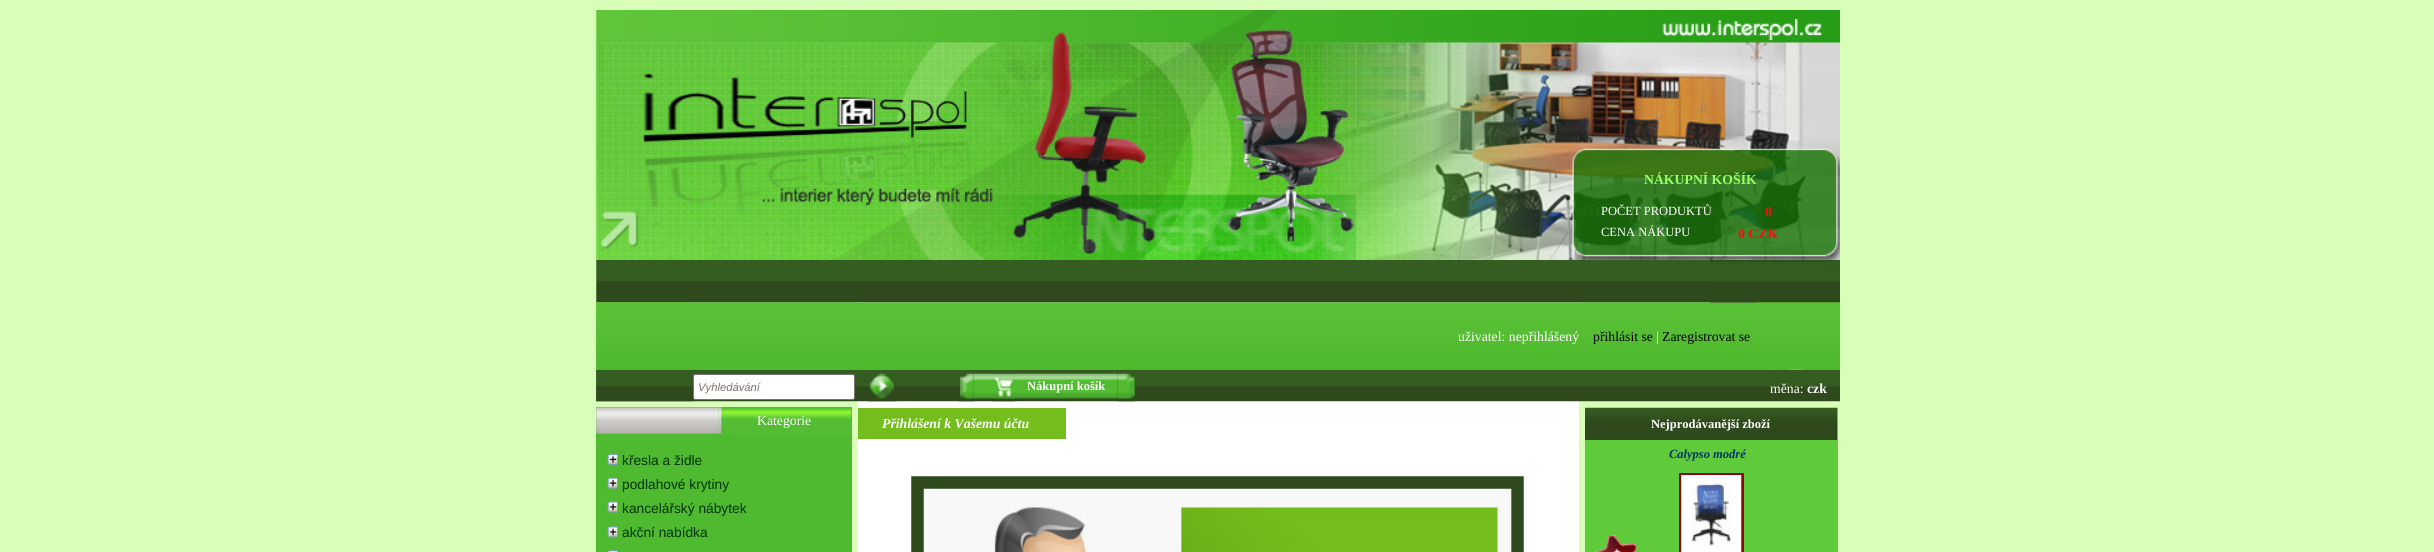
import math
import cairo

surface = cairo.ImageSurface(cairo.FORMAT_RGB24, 2434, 552)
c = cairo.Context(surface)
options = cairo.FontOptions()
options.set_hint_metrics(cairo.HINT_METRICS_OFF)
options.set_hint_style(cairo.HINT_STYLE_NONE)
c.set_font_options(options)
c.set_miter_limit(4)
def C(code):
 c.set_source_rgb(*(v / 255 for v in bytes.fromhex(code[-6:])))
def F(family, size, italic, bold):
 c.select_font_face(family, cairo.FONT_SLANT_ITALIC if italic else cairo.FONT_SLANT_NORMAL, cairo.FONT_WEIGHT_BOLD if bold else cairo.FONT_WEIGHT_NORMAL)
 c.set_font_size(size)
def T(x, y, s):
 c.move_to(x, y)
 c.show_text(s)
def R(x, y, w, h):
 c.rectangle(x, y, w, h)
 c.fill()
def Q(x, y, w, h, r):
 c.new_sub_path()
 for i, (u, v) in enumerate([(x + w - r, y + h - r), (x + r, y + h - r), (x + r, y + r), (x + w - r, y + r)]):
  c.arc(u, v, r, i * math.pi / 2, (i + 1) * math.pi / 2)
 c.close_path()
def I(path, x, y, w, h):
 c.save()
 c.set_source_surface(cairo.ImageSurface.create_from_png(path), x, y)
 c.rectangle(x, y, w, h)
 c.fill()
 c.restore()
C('d9feb9')
c.paint()
C('ffffff')
R(857,302,722,250)
I('1.png',596,10,1244,250)
F('Liberation Serif',13.75,0,1)
C('99ff66')
T(1644,184,'NÁKUPNÍ KOŠÍK')
F('Liberation Serif',12.5,0,0)
C('ffffff')
T(1601,215,'POČET PRODUKTŮ')
F('Liberation Serif',13.75,0,1)
C('fa0c11')
T(1765,216,'0')
F('Liberation Serif',12.5,0,0)
C('ffffff')
T(1601,236,'CENA NÁKUPU')
F('Liberation Serif',13.75,0,1)
C('fa0c11')
T(1738,238,'0 CZK')
I('2.png',596,260,1244,43)
I('4.png',596,302,1244,68)
I('3.png',1710,260,130,43)
I('5.png',596,302,93,68)
F('Liberation Serif',13.75,0,0)
C('ffffff')
T(1458,341,'uživatel: nepřihlášený')
C('000000')
T(1593,341,'přihlásit se')
C('ffffff')
T(1656,341,'|')
C('000000')
T(1662,341,'Zaregistrovat se')
I('6.png',1756,302,84,68)
I('7.png',596,370,1244,32)
I('8.png',596,370,97,32)
C('ffffff')
Q(693.5,374.5,161,25,2)
c.fill_preserve()
C('767676')
c.set_line_width(1)
c.stroke()
F('Liberation Sans',11.25,1,0)
C('7c6e69')
T(698,391,'Vyhledávání')
I('9.png',867,373,30,29)
I('10.png',958,373,16,29)
I('11.png',973,373,145,26)
I('12.png',992,373,23,29)
F('Liberation Serif',12.5,0,1)
C('ffffff')
T(1027,390,'Nákupní košík')
I('13.png',1117,370,18,32)
F('Liberation Serif',13.75,0,0)
T(1770,393,'měna:')
F('Liberation Serif',13.75,0,1)
T(1807,393,'czk')
C('4fba30')
R(596,407,256,145)
I('14.png',596,407,123,27)
I('15.png',718,407,134,27)
F('Liberation Serif',13.75,0,0)
C('ffffff')
T(757,425,'Kategorie')
I('16.png',607,453,11,13)
F('Liberation Sans',13.75,0,0)
C('003300')
T(622,465,'křesla a židle')
I('17.png',607,477,11,12)
T(622,489,'podlahové krytiny')
I('18.png',607,501,11,12)
T(622,513,'kancelářský nábytek')
I('18.png',607,526,11,12)
T(622,537,'akční nabídka')
I('19.png',607,549,11,3)
C('73bd1c')
R(858,408,208,31)
F('Liberation Serif',13.75,1,1)
C('ffffff')
T(882,428,'Přihlášení k Vašemu účtu')
I('20.png',911,476,613,76)
I('21.png',1585,407,253,33)
F('Liberation Serif',12.5,0,1)
T(1651,428,'Nejprodávanější zboží')
C('60cb3a')
R(1585,440,253,112)
F('Liberation Serif',12.5,1,1)
C('003366')
T(1669,458,'Calypso modré')
c.rectangle(1680.5,474.5,62,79)
C('8d070f')
c.set_line_width(3)
c.stroke()
I('22.png',1596,534,42,18)
I('23.png',1681,475,61,77)
surface.write_to_png('o.png')
